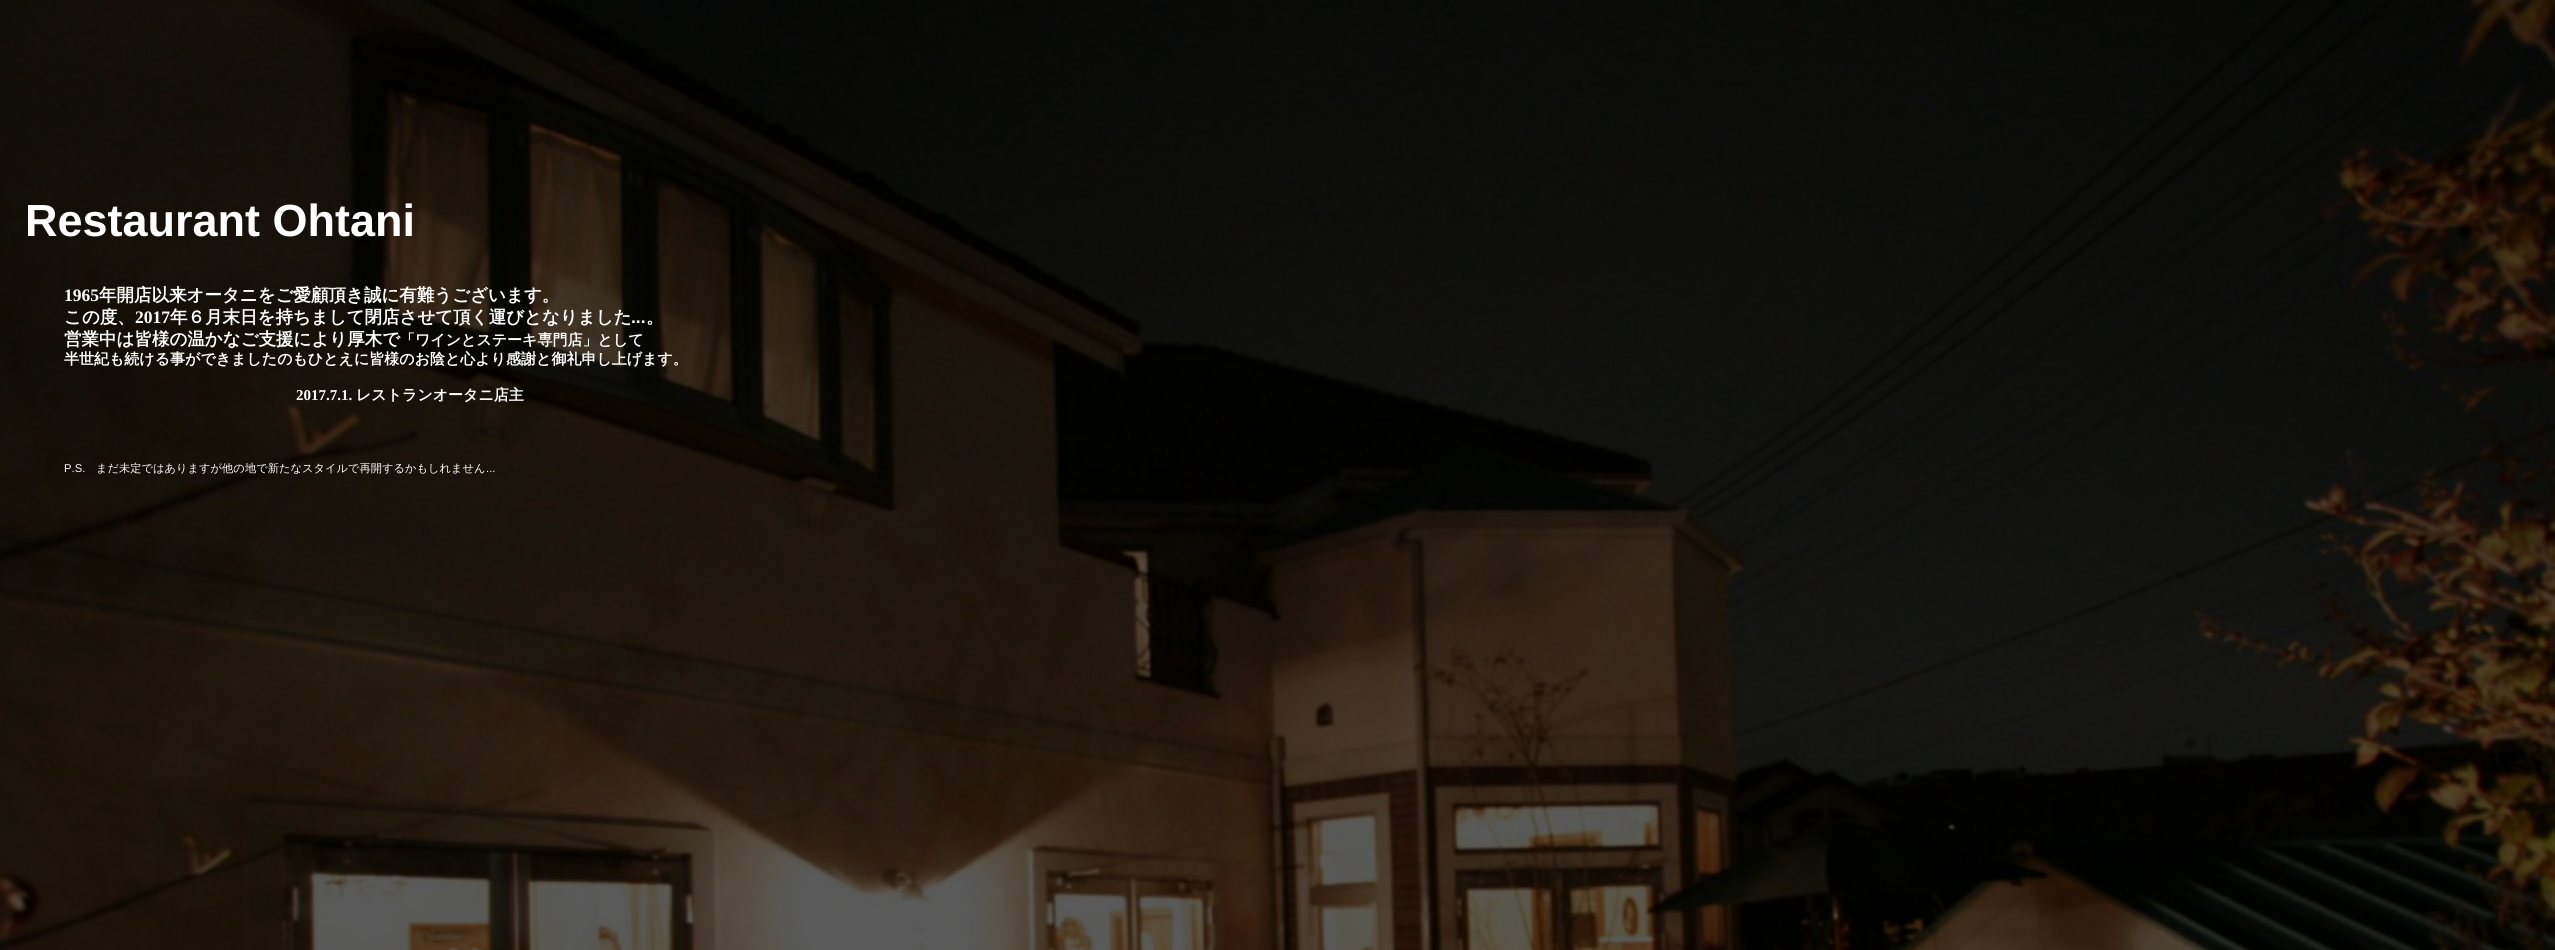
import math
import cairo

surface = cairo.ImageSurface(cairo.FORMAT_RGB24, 2555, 950)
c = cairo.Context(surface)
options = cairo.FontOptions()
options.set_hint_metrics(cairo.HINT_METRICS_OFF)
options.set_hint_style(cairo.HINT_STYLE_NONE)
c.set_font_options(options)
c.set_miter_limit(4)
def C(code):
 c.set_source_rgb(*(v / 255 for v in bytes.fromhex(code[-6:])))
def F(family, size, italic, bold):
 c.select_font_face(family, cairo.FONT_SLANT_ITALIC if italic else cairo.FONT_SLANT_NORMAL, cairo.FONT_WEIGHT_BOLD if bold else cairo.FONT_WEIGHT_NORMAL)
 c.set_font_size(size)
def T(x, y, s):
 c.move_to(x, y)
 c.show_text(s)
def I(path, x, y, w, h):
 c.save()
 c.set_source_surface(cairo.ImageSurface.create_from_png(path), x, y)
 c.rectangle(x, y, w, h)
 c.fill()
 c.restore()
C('000000')
c.paint()
I('1.png',0,0,2555,950)
F('Liberation Sans',45,0,1)
C('ffffff')
T(25,236,'Restaurant Ohtani')
F('Liberation Serif',17.5,0,1)
T(64,301,'1965')
F('WenQuanYi Zen Hei',17.5,0,1)
T(99,301,'年開店以来オータニをご愛顧頂き誠に有難うございます。')
T(64,323,'この度、')
F('Liberation Serif',17.5,0,1)
T(135,323,'2017')
F('WenQuanYi Zen Hei',17.5,0,1)
T(170,323,'年６月末日を持ちまして閉店させて頂く運びとなりました')
F('Liberation Sans',17.5,0,1)
T(631,323,'...')
F('WenQuanYi Zen Hei',17.5,0,1)
T(646,323,'。')
T(64,345,'営業中は皆様の温かなご支援により厚木で')
F('WenQuanYi Zen Hei',15,0,1)
T(400,345,'「ワインとステーキ専門店」として')
T(64,364,'半世紀も続ける事ができましたのもひとえに皆様のお陰と心より感謝と御礼申し上げます。')
F('Liberation Serif',15,0,1)
T(296,400,'2017.7.1.')
F('WenQuanYi Zen Hei',15,0,1)
T(356,400,'レストランオータニ店主')
F('Liberation Sans',11.25,0,0)
T(64,472,'P.S.')
F('WenQuanYi Zen Hei Medium',11.25,0,0)
T(96,472,'まだ未定ではありますが他の地で新たなスタイルで再開するかもしれません')
F('Liberation Sans',11.25,0,0)
T(486,472,'...')
surface.write_to_png('o.png')
